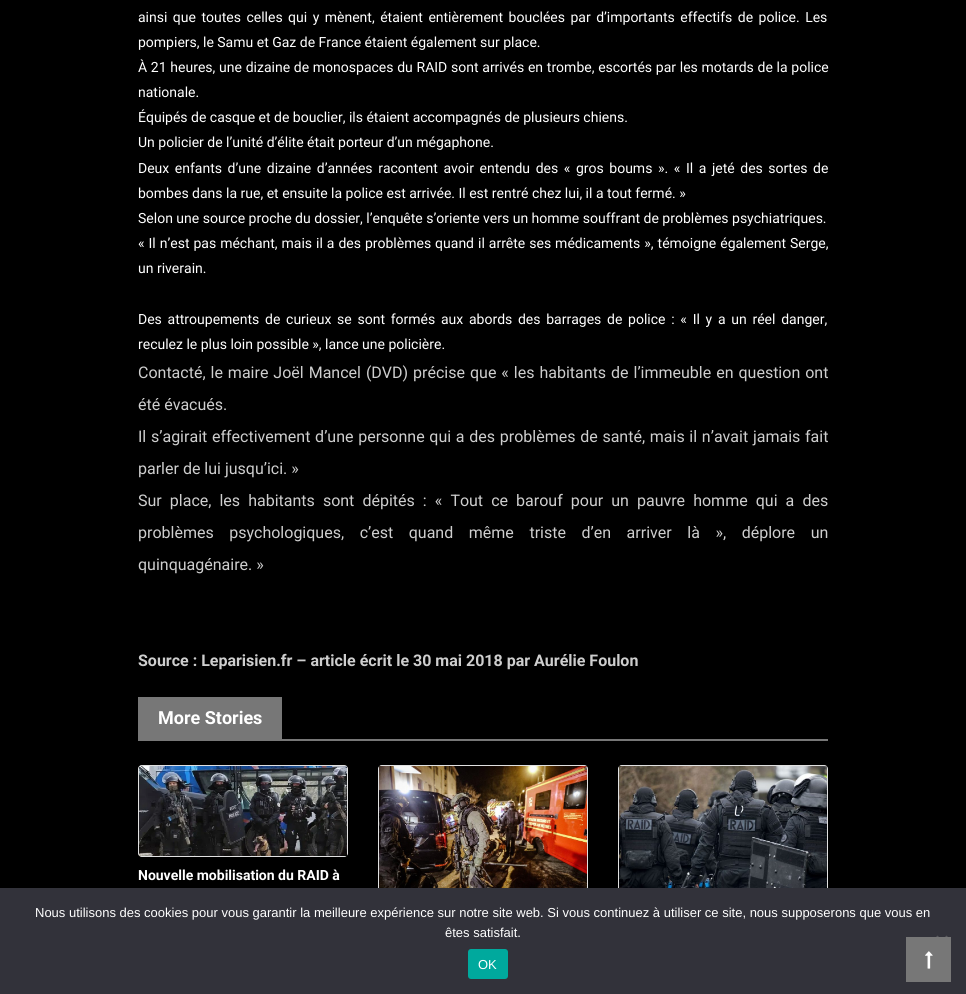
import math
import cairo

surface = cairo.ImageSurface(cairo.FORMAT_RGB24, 966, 994)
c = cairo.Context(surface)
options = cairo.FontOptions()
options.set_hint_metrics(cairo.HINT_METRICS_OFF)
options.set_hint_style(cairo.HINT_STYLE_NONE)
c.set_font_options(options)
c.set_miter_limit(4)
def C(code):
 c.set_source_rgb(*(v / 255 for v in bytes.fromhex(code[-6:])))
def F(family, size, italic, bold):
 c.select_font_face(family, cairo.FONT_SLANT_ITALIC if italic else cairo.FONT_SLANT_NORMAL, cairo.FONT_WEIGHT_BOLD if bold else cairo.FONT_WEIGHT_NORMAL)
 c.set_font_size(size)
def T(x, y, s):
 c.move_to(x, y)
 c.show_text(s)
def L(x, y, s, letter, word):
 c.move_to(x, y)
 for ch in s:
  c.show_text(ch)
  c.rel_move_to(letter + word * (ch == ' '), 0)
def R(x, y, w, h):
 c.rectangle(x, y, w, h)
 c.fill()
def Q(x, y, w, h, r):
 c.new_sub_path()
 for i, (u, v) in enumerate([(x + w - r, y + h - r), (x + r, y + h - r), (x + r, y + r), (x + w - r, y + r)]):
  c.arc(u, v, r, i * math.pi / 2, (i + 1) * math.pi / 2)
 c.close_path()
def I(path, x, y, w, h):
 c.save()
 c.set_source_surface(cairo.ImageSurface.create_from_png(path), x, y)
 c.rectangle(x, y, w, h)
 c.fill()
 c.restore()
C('000000')
c.paint()
F('Roboto',14,0,0)
C('ffffff')
L(138,22,'ainsi que toutes celles qui y mènent, étaient entièrement bouclées par d’importants effectifs de police. Les',0,2)
T(138,47,'pompiers, le Samu et Gaz de France étaient également sur place.')
L(138,72,'À 21 heures, une dizaine de monospaces du RAID sont arrivés en trombe, escortés par les motards de la police',0,.25)
T(138,97,'nationale.')
T(138,122,'Équipés de casque et de bouclier, ils étaient accompagnés de plusieurs chiens.')
T(138,147,'Un policier de l’unité d’élite était porteur d’un mégaphone.')
L(138,173,'Deux enfants d’une dizaine d’années racontent avoir entendu des « gros boums ». « Il a jeté des sortes de',0,2.1)
T(138,198,'bombes dans la rue, et ensuite la police est arrivée. Il est rentré chez lui, il a tout fermé. »')
T(138,223,'Selon une source proche du dossier, l’enquête s’oriente vers un homme souffrant de problèmes psychiatriques.')
L(138,248,'« Il n’est pas méchant, mais il a des problèmes quand il arrête ses médicaments », témoigne également Serge,',0,.5)
T(138,273,'un riverain.')
L(138,324,'Des attroupements de curieux se sont formés aux abords des barrages de police : « Il y a un réel danger,',0,2.25)
T(138,349,'reculez le plus loin possible », lance une policière.')
F('Roboto',16,0,0)
C('cecece')
L(138,378,'Contacté, le maire Joël Mancel (DVD) précise que « les habitants de l’immeuble en question ont',0,1)
T(138,410,'été évacués.')
L(138,442,'Il s’agirait effectivement d’une personne qui a des problèmes de santé, mais il n’avait jamais fait',0,.75)
T(138,474,'parler de lui jusqu’ici. »')
L(138,506,'Sur place, les habitants sont dépités : « Tout ce barouf pour un pauvre homme qui a des',0,4.1)
L(138,538,'problèmes psychologiques, c’est quand même triste d’en arriver là », déplore un',0,11.6)
T(138,570,'quinquagénaire. »')
F('Roboto',16,0,1)
T(138,666,'Source : Leparisien.fr – article écrit le 30 mai 2018 par Aurélie Foulon')
C('777777')
R(138,739,690,2)
R(138,697,144,42)
F('Roboto',18,0,1)
C('ffffff')
T(158,724,'More Stories')
Q(138,765,210,92,4)
c.fill()
Q(138.5,765.5,209,91,3.5)
c.set_source_rgba(0,0,0,0.12)
c.set_line_width(1)
c.stroke()
I('1.png',139,766,208,90)
F('Roboto',14,0,1)
C('ffffff')
T(138,880,'Nouvelle mobilisation du RAID à')
Q(378,765,210,140,4)
c.fill()
Q(378.5,765.5,209,139,3.5)
c.set_source_rgba(0,0,0,0.12)
c.stroke()
I('2.png',379,766,208,122)
C('ffffff')
Q(618,765,210,140,4)
c.fill()
Q(618.5,765.5,209,139,3.5)
c.set_source_rgba(0,0,0,0.12)
c.stroke()
I('3.png',619,766,208,122)
C('32323a')
R(0,888,966,106)
F('Liberation Sans',13,0,0)
C('ffffff')
T(35,917,'Nous utilisons des cookies pour vous garantir la meilleure expérience sur notre site web. Si vous continuez à utiliser ce site, nous supposerons que vous en')
T(445,937,'êtes satisfait.')
C('59595d')
c.new_path()
c.move_to(946.5,935.5)
c.line_to(948,937)
c.line_to(937.5,947.5)
c.line_to(936,946)
c.close_path()
c.fill()
c.new_path()
c.move_to(936,937)
c.line_to(937.5,935.5)
c.line_to(948,946)
c.line_to(946.5,947.5)
c.close_path()
c.fill()
C('00a99d')
Q(468,949,40,30,3)
c.fill()
C('ffffff')
T(478,969,'OK')
C('777777')
R(906,937,45,45)
I('4.png',925,951,8,18)
surface.write_to_png('o.png')
